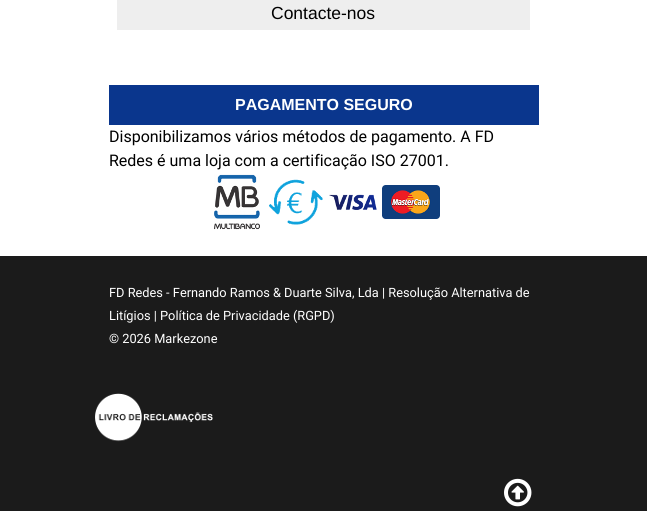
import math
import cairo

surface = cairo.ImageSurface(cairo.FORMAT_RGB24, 647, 511)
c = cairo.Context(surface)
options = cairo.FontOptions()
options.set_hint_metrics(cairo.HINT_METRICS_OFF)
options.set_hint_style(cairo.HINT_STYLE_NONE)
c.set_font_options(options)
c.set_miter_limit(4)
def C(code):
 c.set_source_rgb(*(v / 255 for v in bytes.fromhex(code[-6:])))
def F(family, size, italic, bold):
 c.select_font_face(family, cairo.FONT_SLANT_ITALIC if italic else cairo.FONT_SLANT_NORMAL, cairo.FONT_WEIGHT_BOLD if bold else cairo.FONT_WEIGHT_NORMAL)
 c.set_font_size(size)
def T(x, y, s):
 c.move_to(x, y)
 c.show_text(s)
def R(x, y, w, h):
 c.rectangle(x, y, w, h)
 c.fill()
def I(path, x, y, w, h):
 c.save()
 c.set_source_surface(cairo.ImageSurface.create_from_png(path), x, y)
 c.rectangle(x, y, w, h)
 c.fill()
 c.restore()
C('ffffff')
c.paint()
C('eeeeee')
R(117,0,413,30)
F('Liberation Sans',17.5,0,0)
C('000000')
T(271,19,'Contacte-nos')
C('0a368d')
R(109,85,430,40)
F('Liberation Sans',16,0,1)
C('ffffff')
T(235,110,'PAGAMENTO SEGURO')
F('Roboto',16,0,0)
C('000000')
T(109,142,'Disponibilizamos vários métodos de pagamento. A FD')
T(109,166,'Redes é uma loja com a certificação ISO 27001.')
I('1.png',214,174,46,56)
I('2.png',269,179,54,46)
I('3.png',329,194,48,16)
I('4.png',382,185,58,34)
C('1b1b1b')
R(0,256,647,255)
F('Roboto',12.8,0,0)
C('ffffff')
T(109,297,'FD Redes - Fernando Ramos & Duarte Silva, Lda | Resolução Alternativa de')
T(109,320,'Litígios | Política de Privacidade (RGPD)')
T(109,343,'© 2026 Markezone')
I('5.png',95,393,118,49)
I('6.png',504,478,28,29)
surface.write_to_png('o.png')
